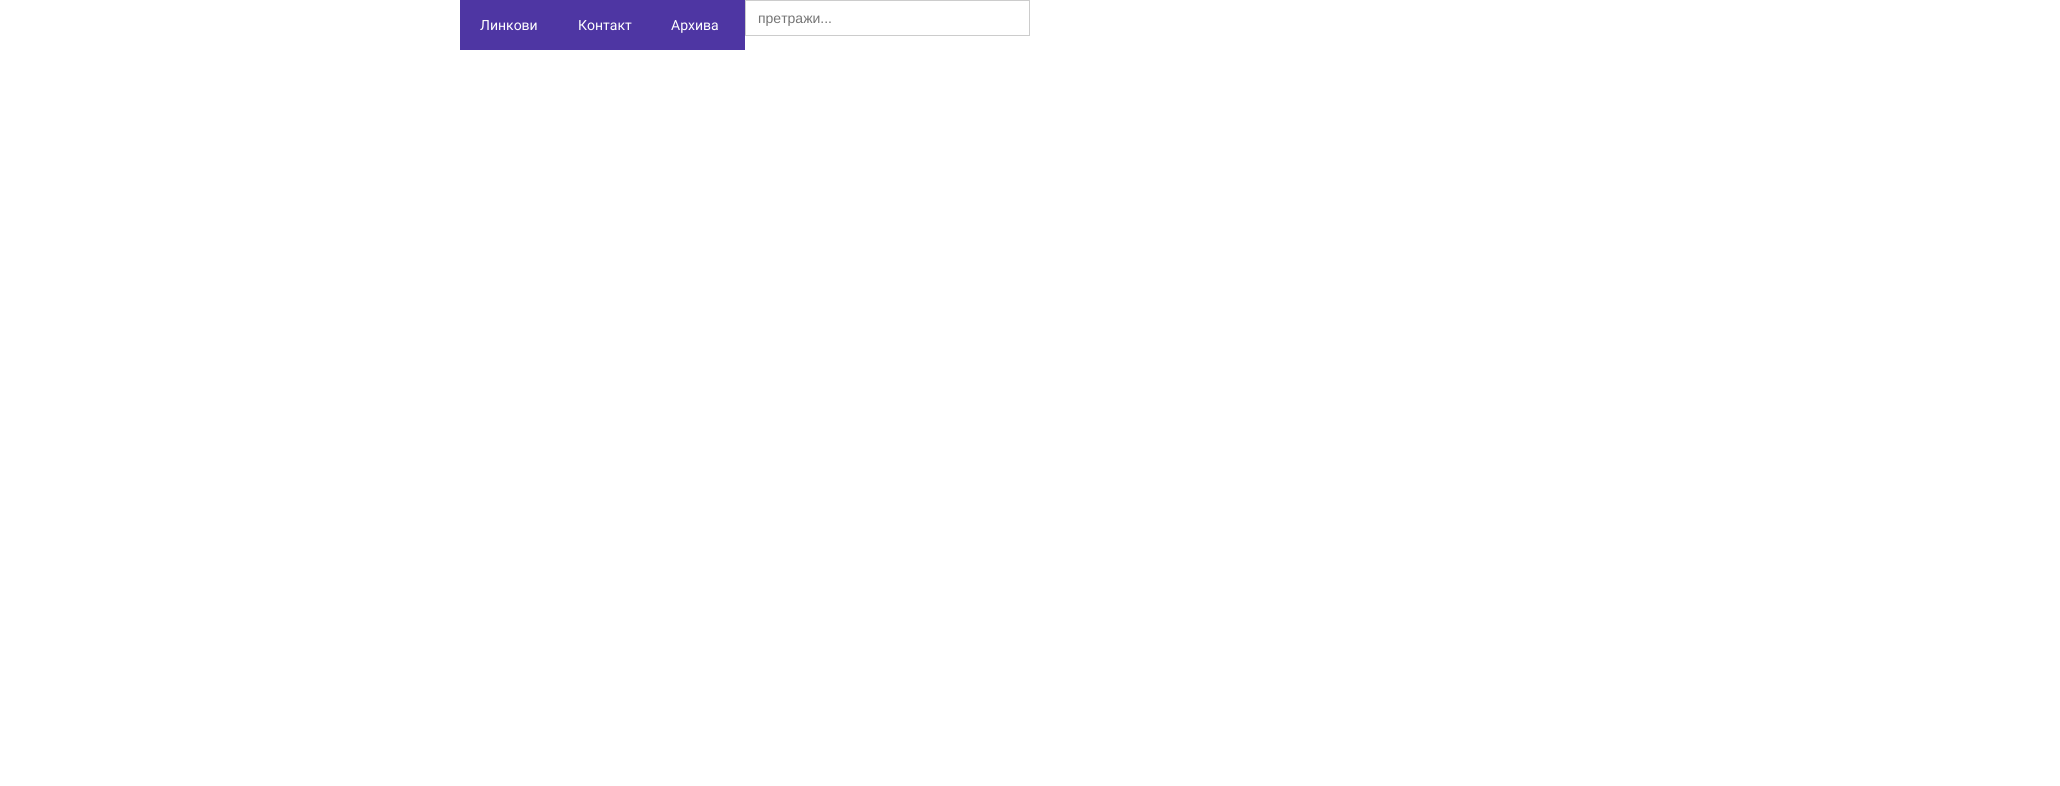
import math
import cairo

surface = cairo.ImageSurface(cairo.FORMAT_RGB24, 2060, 786)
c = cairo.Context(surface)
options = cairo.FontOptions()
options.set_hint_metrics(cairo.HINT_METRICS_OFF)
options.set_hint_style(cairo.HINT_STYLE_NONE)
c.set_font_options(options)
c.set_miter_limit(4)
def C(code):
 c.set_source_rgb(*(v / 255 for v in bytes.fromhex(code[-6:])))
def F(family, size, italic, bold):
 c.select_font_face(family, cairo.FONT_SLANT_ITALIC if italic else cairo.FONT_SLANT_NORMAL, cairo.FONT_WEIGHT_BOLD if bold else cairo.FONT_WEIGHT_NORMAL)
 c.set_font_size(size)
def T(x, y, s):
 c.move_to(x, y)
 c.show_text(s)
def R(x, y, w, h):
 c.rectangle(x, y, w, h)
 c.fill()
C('ffffff')
c.paint()
C('4e36a3')
R(460,0,285,50)
F('Roboto',14,0,0)
C('ffffff')
T(480,30,'Линкови')
T(578,30,'Контакт')
T(671,30,'Архива')
c.rectangle(745.5,.5,284,35)
C('cccccc')
c.set_line_width(1)
c.stroke()
F('Liberation Sans',14,0,0)
C('757575')
T(758,23,'претражи...')
surface.write_to_png('o.png')
